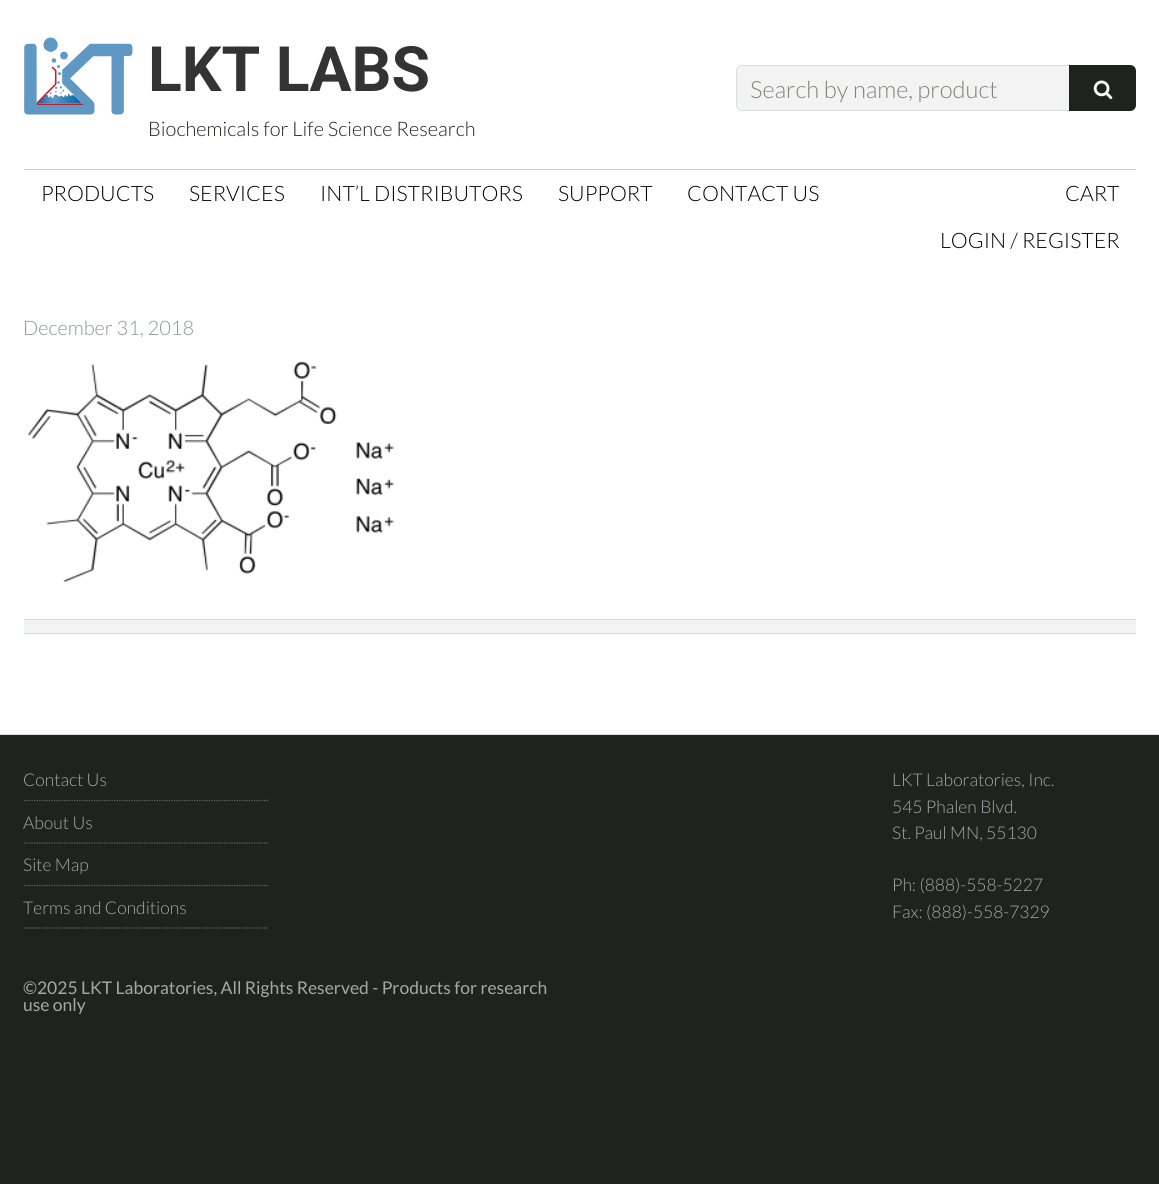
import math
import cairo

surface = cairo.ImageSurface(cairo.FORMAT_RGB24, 1159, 1184)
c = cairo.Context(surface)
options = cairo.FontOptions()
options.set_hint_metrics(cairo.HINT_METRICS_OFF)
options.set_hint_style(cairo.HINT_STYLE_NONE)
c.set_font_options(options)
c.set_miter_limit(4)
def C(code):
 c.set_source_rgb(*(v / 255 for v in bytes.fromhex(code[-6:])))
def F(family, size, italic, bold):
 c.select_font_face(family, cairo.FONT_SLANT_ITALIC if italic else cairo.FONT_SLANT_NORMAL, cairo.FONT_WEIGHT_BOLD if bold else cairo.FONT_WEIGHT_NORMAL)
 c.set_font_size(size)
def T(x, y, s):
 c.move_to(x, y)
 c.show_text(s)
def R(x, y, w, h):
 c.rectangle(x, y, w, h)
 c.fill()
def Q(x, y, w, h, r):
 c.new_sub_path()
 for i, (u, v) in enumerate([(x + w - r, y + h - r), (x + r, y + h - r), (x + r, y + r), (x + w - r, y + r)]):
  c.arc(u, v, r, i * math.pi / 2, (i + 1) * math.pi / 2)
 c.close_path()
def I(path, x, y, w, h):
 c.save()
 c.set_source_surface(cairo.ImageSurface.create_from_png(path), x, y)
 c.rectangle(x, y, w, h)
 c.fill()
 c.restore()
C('ffffff')
c.paint()
I('1.png',24,37,109,78)
F('Roboto',62.5,0,1)
C('333333')
T(148,91,'LKT LABS')
F('Lato Light',20,0,0)
C('20221d')
T(148,136,'Biochemicals for Life Science Research')
C('f3f3f3')
Q(736.5,65.5,356,45,5.5)
c.fill_preserve()
C('daddde')
c.set_line_width(1)
c.stroke()
F('Lato Light',23.75,0,0)
C('82837e')
T(750,98,'Search by name, product')
C('20221d')
c.new_path()
c.move_to(1069,65)
c.line_to(1130,65)
c.curve_to(1133.5,65,1136,67.5,1136,71)
c.line_to(1136,105)
c.curve_to(1136,108.5,1133.5,111,1130,111)
c.line_to(1069,111)
c.close_path()
c.fill()
I('2.png',1093,80,20,20)
C('cdd1d2')
R(24,169,1112,1)
F('Lato Light',21.25,0,0)
C('000000')
T(41,201,'PRODUCTS')
T(189,201,'SERVICES')
T(320,201,'INT’L DISTRIBUTORS')
T(558,201,'SUPPORT')
T(687,201,'CONTACT US')
T(1065,201,'CART')
T(940,248,'LOGIN / REGISTER')
F('Lato Light',20,0,0)
C('8d9495')
T(23,335,'December 31, 2018')
I('3.png',27,361,367,222)
C('f2f4f4')
R(24,620,1112,13)
C('d8dbdc')
R(24,619,1112,1)
R(24,633,1112,1)
C('20221d')
c.new_path()
c.move_to(-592,734)
c.line_to(-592,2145)
c.line_to(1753,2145)
c.line_to(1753,734)
c.line_to(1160,734)
c.line_to(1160,960)
c.line_to(0,960)
c.line_to(0,734)
c.close_path()
c.fill()
R(0,735,1159,225)
C('daddde')
R(0,734,1159,1)
c.new_path()
c.move_to(24,800.5)
c.line_to(269,800.5)
C('666666')
c.set_line_width(1.2)
c.set_dash([1.25,1.25])
c.stroke()
F('Lato Light',17.5,0,0)
C('a3a9aa')
T(23,786,'Contact Us')
c.new_path()
c.move_to(24,843)
c.line_to(269,843)
C('666666')
c.stroke()
C('a3a9aa')
T(23,829,'About Us')
c.new_path()
c.move_to(24,885.5)
c.line_to(269,885.5)
C('666666')
c.stroke()
C('a3a9aa')
T(23,871,'Site Map')
c.new_path()
c.move_to(24,928)
c.line_to(269,928)
C('666666')
c.stroke()
C('a3a9aa')
T(23,914,'Terms and Conditions')
T(892,786,'LKT Laboratories, Inc.')
T(892,813,'545 Phalen Blvd.')
T(892,839,'St. Paul MN, 55130')
T(892,891,'Ph: (888)-558-5227')
T(892,918,'Fax: (888)-558-7329')
F('Lato',17.5,0,0)
T(23,994,'©2025 LKT Laboratories, All Rights Reserved - Products for research')
T(23,1011,'use only')
surface.write_to_png('o.png')
